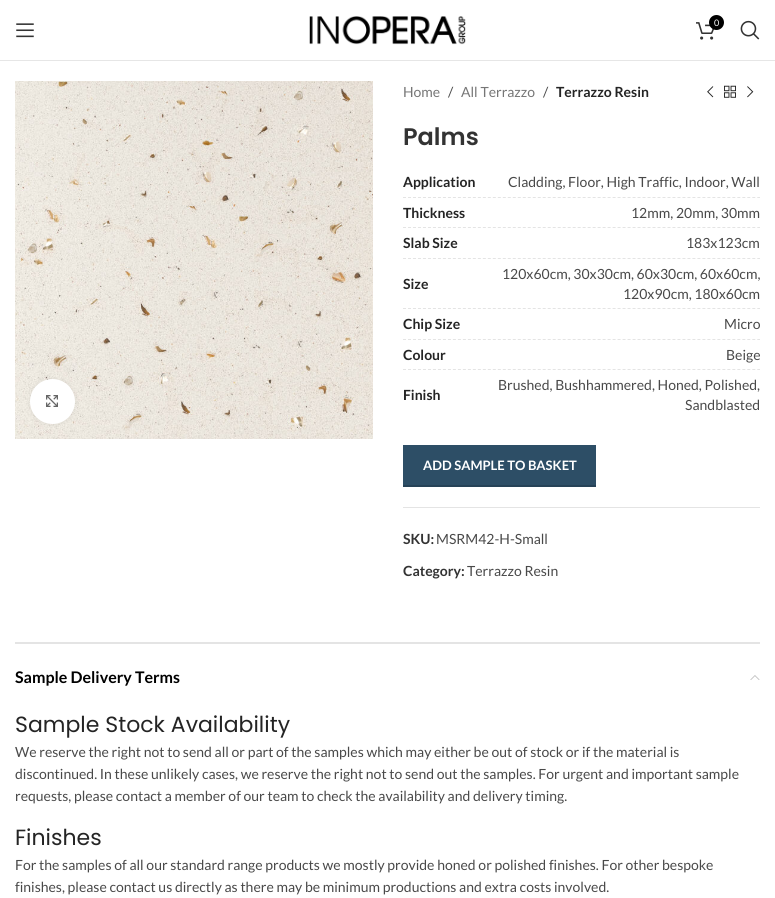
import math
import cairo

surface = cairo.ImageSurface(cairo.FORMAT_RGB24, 775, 898)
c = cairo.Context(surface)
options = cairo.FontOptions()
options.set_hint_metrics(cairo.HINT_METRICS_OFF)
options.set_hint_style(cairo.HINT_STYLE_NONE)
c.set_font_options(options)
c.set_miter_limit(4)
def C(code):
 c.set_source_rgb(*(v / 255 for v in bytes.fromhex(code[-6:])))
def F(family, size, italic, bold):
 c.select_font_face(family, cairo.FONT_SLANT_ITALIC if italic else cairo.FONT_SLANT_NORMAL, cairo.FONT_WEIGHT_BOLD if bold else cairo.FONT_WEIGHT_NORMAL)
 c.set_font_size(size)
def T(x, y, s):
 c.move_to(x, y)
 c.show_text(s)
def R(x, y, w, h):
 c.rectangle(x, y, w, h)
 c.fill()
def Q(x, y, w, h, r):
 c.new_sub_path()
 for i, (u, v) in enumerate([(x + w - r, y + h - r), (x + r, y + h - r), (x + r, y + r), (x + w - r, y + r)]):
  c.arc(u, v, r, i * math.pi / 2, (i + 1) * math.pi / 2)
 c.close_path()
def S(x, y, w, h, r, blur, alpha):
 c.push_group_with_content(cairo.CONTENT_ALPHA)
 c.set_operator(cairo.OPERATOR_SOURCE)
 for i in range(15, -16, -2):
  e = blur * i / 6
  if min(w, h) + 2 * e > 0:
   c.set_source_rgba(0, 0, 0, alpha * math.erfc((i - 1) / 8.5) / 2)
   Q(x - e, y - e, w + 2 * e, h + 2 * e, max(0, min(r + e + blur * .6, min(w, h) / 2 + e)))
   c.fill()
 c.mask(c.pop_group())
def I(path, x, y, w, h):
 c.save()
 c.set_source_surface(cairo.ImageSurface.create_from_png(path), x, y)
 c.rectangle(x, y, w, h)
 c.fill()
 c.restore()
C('ffffff')
c.paint()
C('e6e6e6')
R(0,60,775,1)
I('1.png',16,23,18,15)
I('2.png',309,16,157,29)
I('3.png',696,22,19,18)
C('000000')
c.arc(716.5,22.5,7.5,0,2 * math.pi)
c.fill()
F('Lato',9,0,0)
C('ffffff')
T(714,26,'0')
I('4.png',740,20,20,20)
I('5.png',15,81,358,358)
C('000000')
S(30,379,45,45,22.5,2.5,.08)
C('ffffff')
c.arc(52.5,401.5,22.5,0,2 * math.pi)
c.fill()
I('6.png',46,395,12,12)
F('Lato',14,0,0)
C('767676')
T(403,97,'Home')
C('494949')
T(448,97,'/')
C('767676')
T(461,97,'All Terrazzo')
C('494949')
T(543,97,'/')
F('Lato',14,0,1)
C('242424')
T(556,97,'Terrazzo Resin')
I('7.png',707,86,7,12)
I('8.png',724,85,12,13)
I('9.png',747,86,7,12)
F('Poppins SemiBold',24,0,0)
C('333333')
T(403,145,'Palms')
c.new_path()
c.move_to(403,197.5)
c.line_to(760,197.5)
C('e4e4e4')
c.set_line_width(1)
c.set_dash([3,1.99])
c.stroke()
F('Lato',14,0,1)
C('242424')
T(403,187,'Application')
F('Lato',14,0,0)
C('494949')
T(508,187,'Cladding, Floor, High Traffic, Indoor, Wall')
c.new_path()
c.move_to(403,227.5)
c.line_to(760,227.5)
C('e4e4e4')
c.stroke()
F('Lato',14,0,1)
C('242424')
T(403,218,'Thickness')
F('Lato',14,0,0)
C('494949')
T(631,218,'12mm, 20mm, 30mm')
c.new_path()
c.move_to(403,258.5)
c.line_to(760,258.5)
C('e4e4e4')
c.stroke()
F('Lato',14,0,1)
C('242424')
T(403,248,'Slab Size')
F('Lato',14,0,0)
C('494949')
T(686,248,'183x123cm')
c.new_path()
c.move_to(403,308.5)
c.line_to(760,308.5)
C('e4e4e4')
c.stroke()
F('Lato',14,0,1)
C('242424')
T(403,289,'Size')
F('Lato',14,0,0)
C('494949')
T(502,279,'120x60cm, 30x30cm, 60x30cm, 60x60cm,')
T(623,299,'120x90cm, 180x60cm')
c.new_path()
c.move_to(403,339.5)
c.line_to(760,339.5)
C('e4e4e4')
c.stroke()
F('Lato',14,0,1)
C('242424')
T(403,329,'Chip Size')
F('Lato',14,0,0)
C('494949')
T(724,329,'Micro')
c.new_path()
c.move_to(403,369.5)
c.line_to(760,369.5)
C('e4e4e4')
c.stroke()
F('Lato',14,0,1)
C('242424')
T(403,360,'Colour')
F('Lato',14,0,0)
C('494949')
T(726,360,'Beige')
F('Lato',14,0,1)
C('242424')
T(403,400,'Finish')
F('Lato',14,0,0)
C('494949')
T(498,390,'Brushed, Bushhammered, Honed, Polished,')
T(685,410,'Sandblasted')
C('2d4e66')
R(403,445,193,40)
C('264257')
R(403,485,193,2)
F('Lato',13,0,1)
C('ffffff')
T(423,470,'ADD SAMPLE TO BASKET')
C('e4e4e4')
R(403,507,357,1)
F('Lato',14,0,1)
C('333333')
T(403,544,'SKU:')
F('Lato',14,0,0)
C('494949')
T(436,544,'MSRM42-H-Small')
F('Lato',14,0,1)
C('333333')
T(403,576,'Category:')
F('Lato',14,0,0)
C('494949')
T(467,576,'Terrazzo Resin')
C('e4e4e4')
R(15,642,745,2)
F('Lato',16,0,1)
C('000000')
T(15,683,'Sample Delivery Terms')
I('10.png',750,675,10,5)
F('Poppins',22,0,0)
C('242424')
T(15,732,'Sample Stock Availability')
F('Lato',14,0,0)
C('494949')
T(15,757,'We reserve the right not to send all or part of the samples which may either be out of stock or if the material is')
T(15,779,'discontinued. In these unlikely cases, we reserve the right not to send out the samples. For urgent and important sample')
T(15,801,'requests, please contact a member of our team to check the availability and delivery timing.')
F('Poppins',22,0,0)
C('242424')
T(15,845,'Finishes')
F('Lato',14,0,0)
C('494949')
T(15,870,'For the samples of all our standard range products we mostly provide honed or polished finishes. For other bespoke')
T(15,892,'finishes, please contact us directly as there may be minimum productions and extra costs involved.')
surface.write_to_png('o.png')
